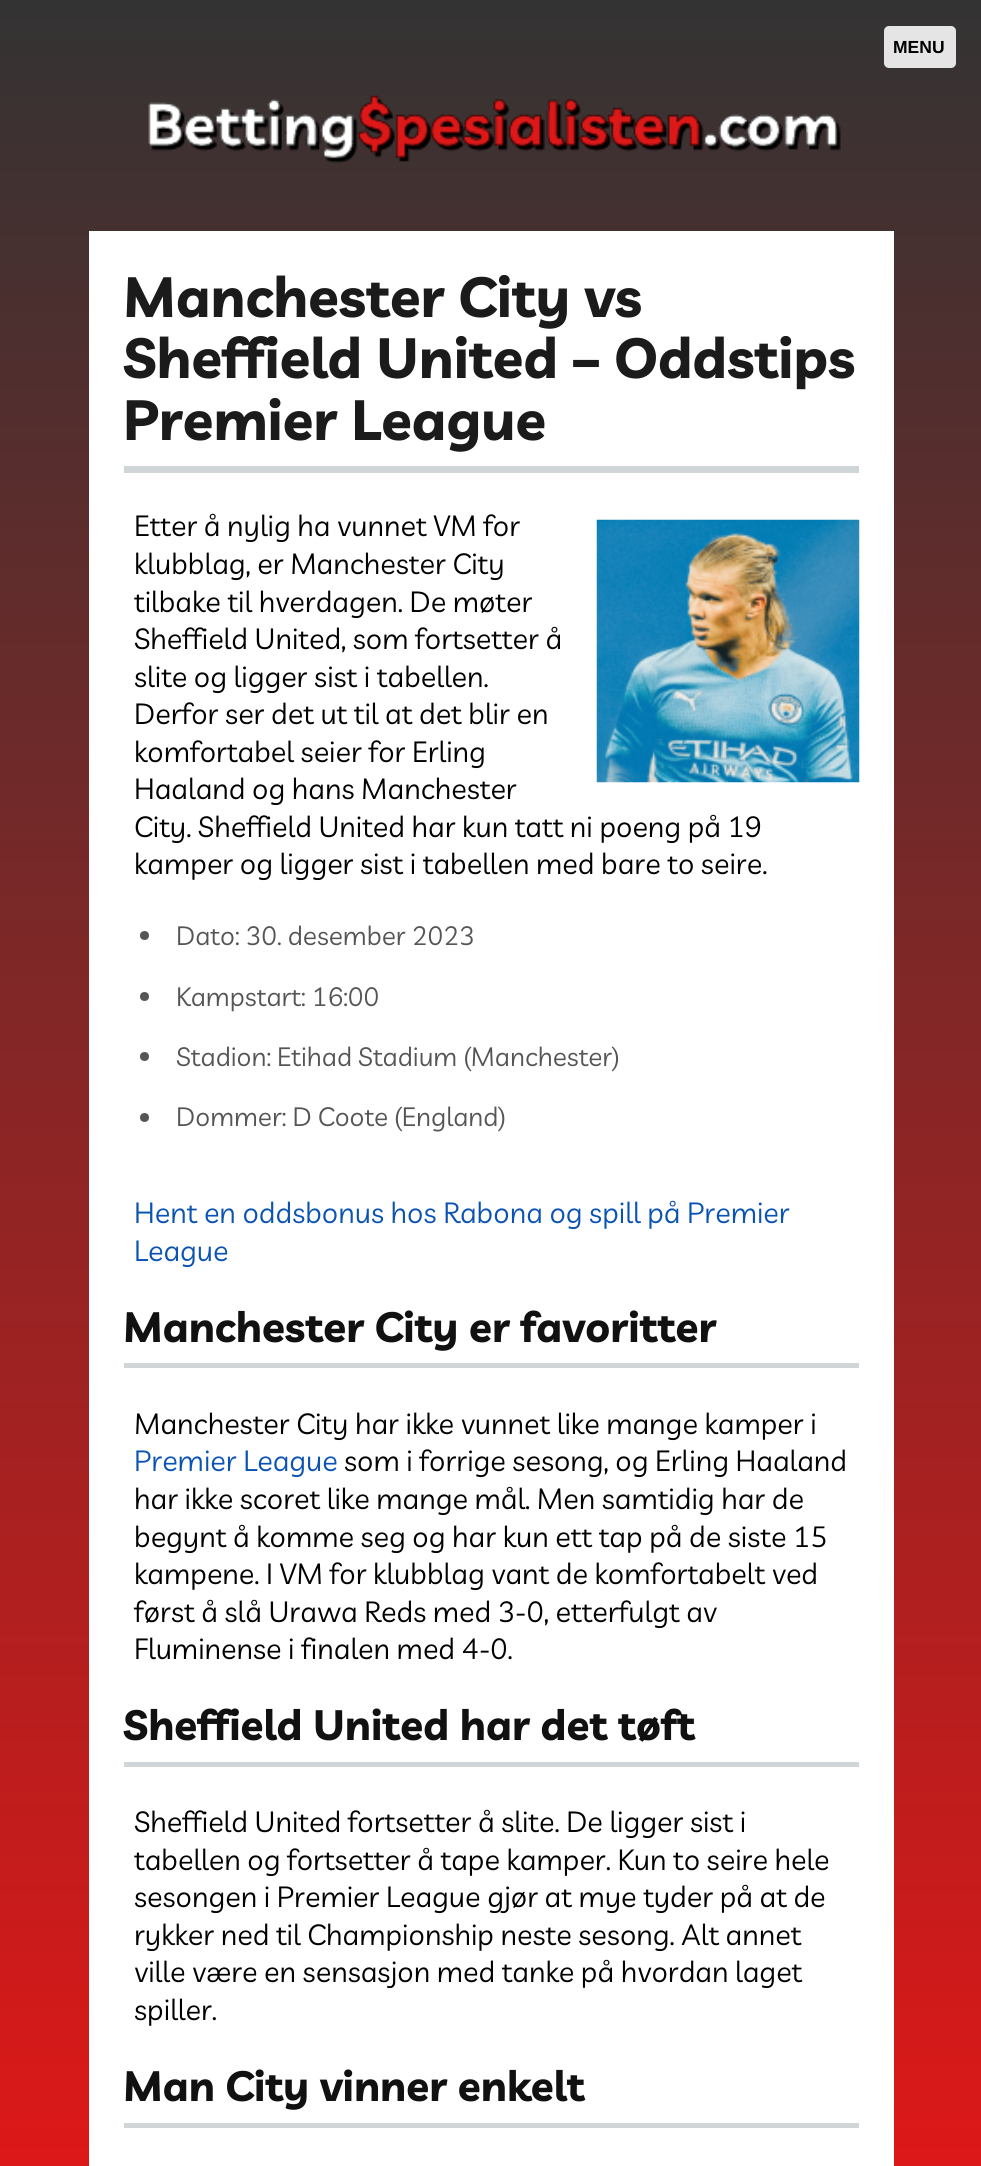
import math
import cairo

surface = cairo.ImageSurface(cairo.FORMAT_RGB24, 981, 2166)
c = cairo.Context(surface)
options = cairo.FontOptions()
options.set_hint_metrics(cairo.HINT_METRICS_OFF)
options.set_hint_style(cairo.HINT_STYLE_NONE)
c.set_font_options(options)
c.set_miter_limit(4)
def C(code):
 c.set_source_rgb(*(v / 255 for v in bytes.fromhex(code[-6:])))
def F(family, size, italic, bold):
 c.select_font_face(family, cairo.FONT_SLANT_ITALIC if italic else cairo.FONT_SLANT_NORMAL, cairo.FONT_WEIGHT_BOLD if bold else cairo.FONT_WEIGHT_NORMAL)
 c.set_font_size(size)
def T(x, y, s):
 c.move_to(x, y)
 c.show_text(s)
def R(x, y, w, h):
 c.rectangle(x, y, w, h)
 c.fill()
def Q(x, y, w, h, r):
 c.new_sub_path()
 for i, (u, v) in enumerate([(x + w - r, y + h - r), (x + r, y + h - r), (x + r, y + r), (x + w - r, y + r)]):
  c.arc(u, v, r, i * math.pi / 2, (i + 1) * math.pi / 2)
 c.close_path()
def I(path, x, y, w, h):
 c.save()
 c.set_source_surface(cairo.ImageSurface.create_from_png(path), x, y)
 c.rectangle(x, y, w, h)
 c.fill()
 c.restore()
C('ffffff')
c.paint()
gradient = cairo.LinearGradient(491,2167,491,0)
gradient.add_color_stop_rgba(0,0.867,0.094,0.094,1)
gradient.add_color_stop_rgba(1,0.2,0.2,0.2,1)
c.set_source(gradient)
R(0,0,981,2166)
C('e5e5e5')
Q(884,26,72,42,5)
c.fill()
F('Liberation Sans',17.5,0,1)
C('000000')
T(893,53,'MENU')
I('1.png',148,95,693,68)
C('ffffff')
R(89,231,805,1935)
C('d0d6d8')
R(124,466,735,7)
F('Livvic',56,0,1)
C('1b1b1b')
T(123,317,'Manchester City vs')
T(123,378,'Sheffield United – Oddstips')
T(123,440,'Premier League')
F('Livvic',28.9,0,0)
C('000000')
T(134,536,'Etter å nylig ha vunnet VM for')
T(134,574,'klubblag, er Manchester City')
T(134,612,'tilbake til hverdagen. De møter')
T(134,649,'Sheffield United, som fortsetter å')
T(134,687,'slite og ligger sist i tabellen.')
T(134,724,'Derfor ser det ut til at det blir en')
T(134,762,'komfortabel seier for Erling')
T(134,799,'Haaland og hans Manchester')
T(134,837,'City. Sheffield United har kun tatt ni poeng på 19')
T(134,874,'kamper og ligger sist i tabellen med bare to seire.')
I('2.png',596,519,264,264)
C('555555')
c.arc(144.5,935.5,4.5,0,2 * math.pi)
c.fill()
F('Livvic',26.25,0,0)
T(176,945,'Dato: 30. desember 2023')
c.new_path()
c.arc(144.5,996.5,4.5,0,2 * math.pi)
c.fill()
T(176,1006,'Kampstart: 16:00')
c.new_path()
c.arc(144.5,1056.5,4.5,0,2 * math.pi)
c.fill()
T(176,1066,'Stadion: Etihad Stadium (Manchester)')
c.new_path()
c.arc(144.5,1117.5,4.5,0,2 * math.pi)
c.fill()
T(176,1126,'Dommer: D Coote (England)')
F('Livvic',28.9,0,0)
C('0a53b3')
T(134,1223,'Hent en oddsbonus hos Rabona og spill på Premier')
T(134,1261,'League')
C('d0d6d8')
R(124,1363,735,5)
F('Livvic',42,0,1)
C('111111')
T(123,1342,'Manchester City er favoritter')
F('Livvic',28.9,0,0)
C('000000')
T(134,1434,'Manchester City har ikke vunnet like mange kamper i')
C('0a53b3')
T(134,1471,'Premier League')
C('000000')
T(344,1471,'som i forrige sesong, og Erling Haaland')
T(134,1509,'har ikke scoret like mange mål. Men samtidig har de')
T(134,1547,'begynt å komme seg og har kun ett tap på de siste 15')
T(134,1584,'kampene. I VM for klubblag vant de komfortabelt ved')
T(134,1622,'først å slå Urawa Reds med 3-0, etterfulgt av')
T(134,1659,'Fluminense i finalen med 4-0.')
C('d0d6d8')
R(124,1762,735,5)
F('Livvic',42,0,1)
C('111111')
T(123,1740,'Sheffield United har det tøft')
F('Livvic',28.9,0,0)
C('000000')
T(134,1832,'Sheffield United fortsetter å slite. De ligger sist i')
T(134,1870,'tabellen og fortsetter å tape kamper. Kun to seire hele')
T(134,1907,'sesongen i Premier League gjør at mye tyder på at de')
T(134,1945,'rykker ned til Championship neste sesong. Alt annet')
T(134,1982,'ville være en sensasjon med tanke på hvordan laget')
T(134,2020,'spiller.')
C('d0d6d8')
R(124,2123,735,5)
F('Livvic',42,0,1)
C('111111')
T(123,2101,'Man City vinner enkelt')
surface.write_to_png('o.png')
